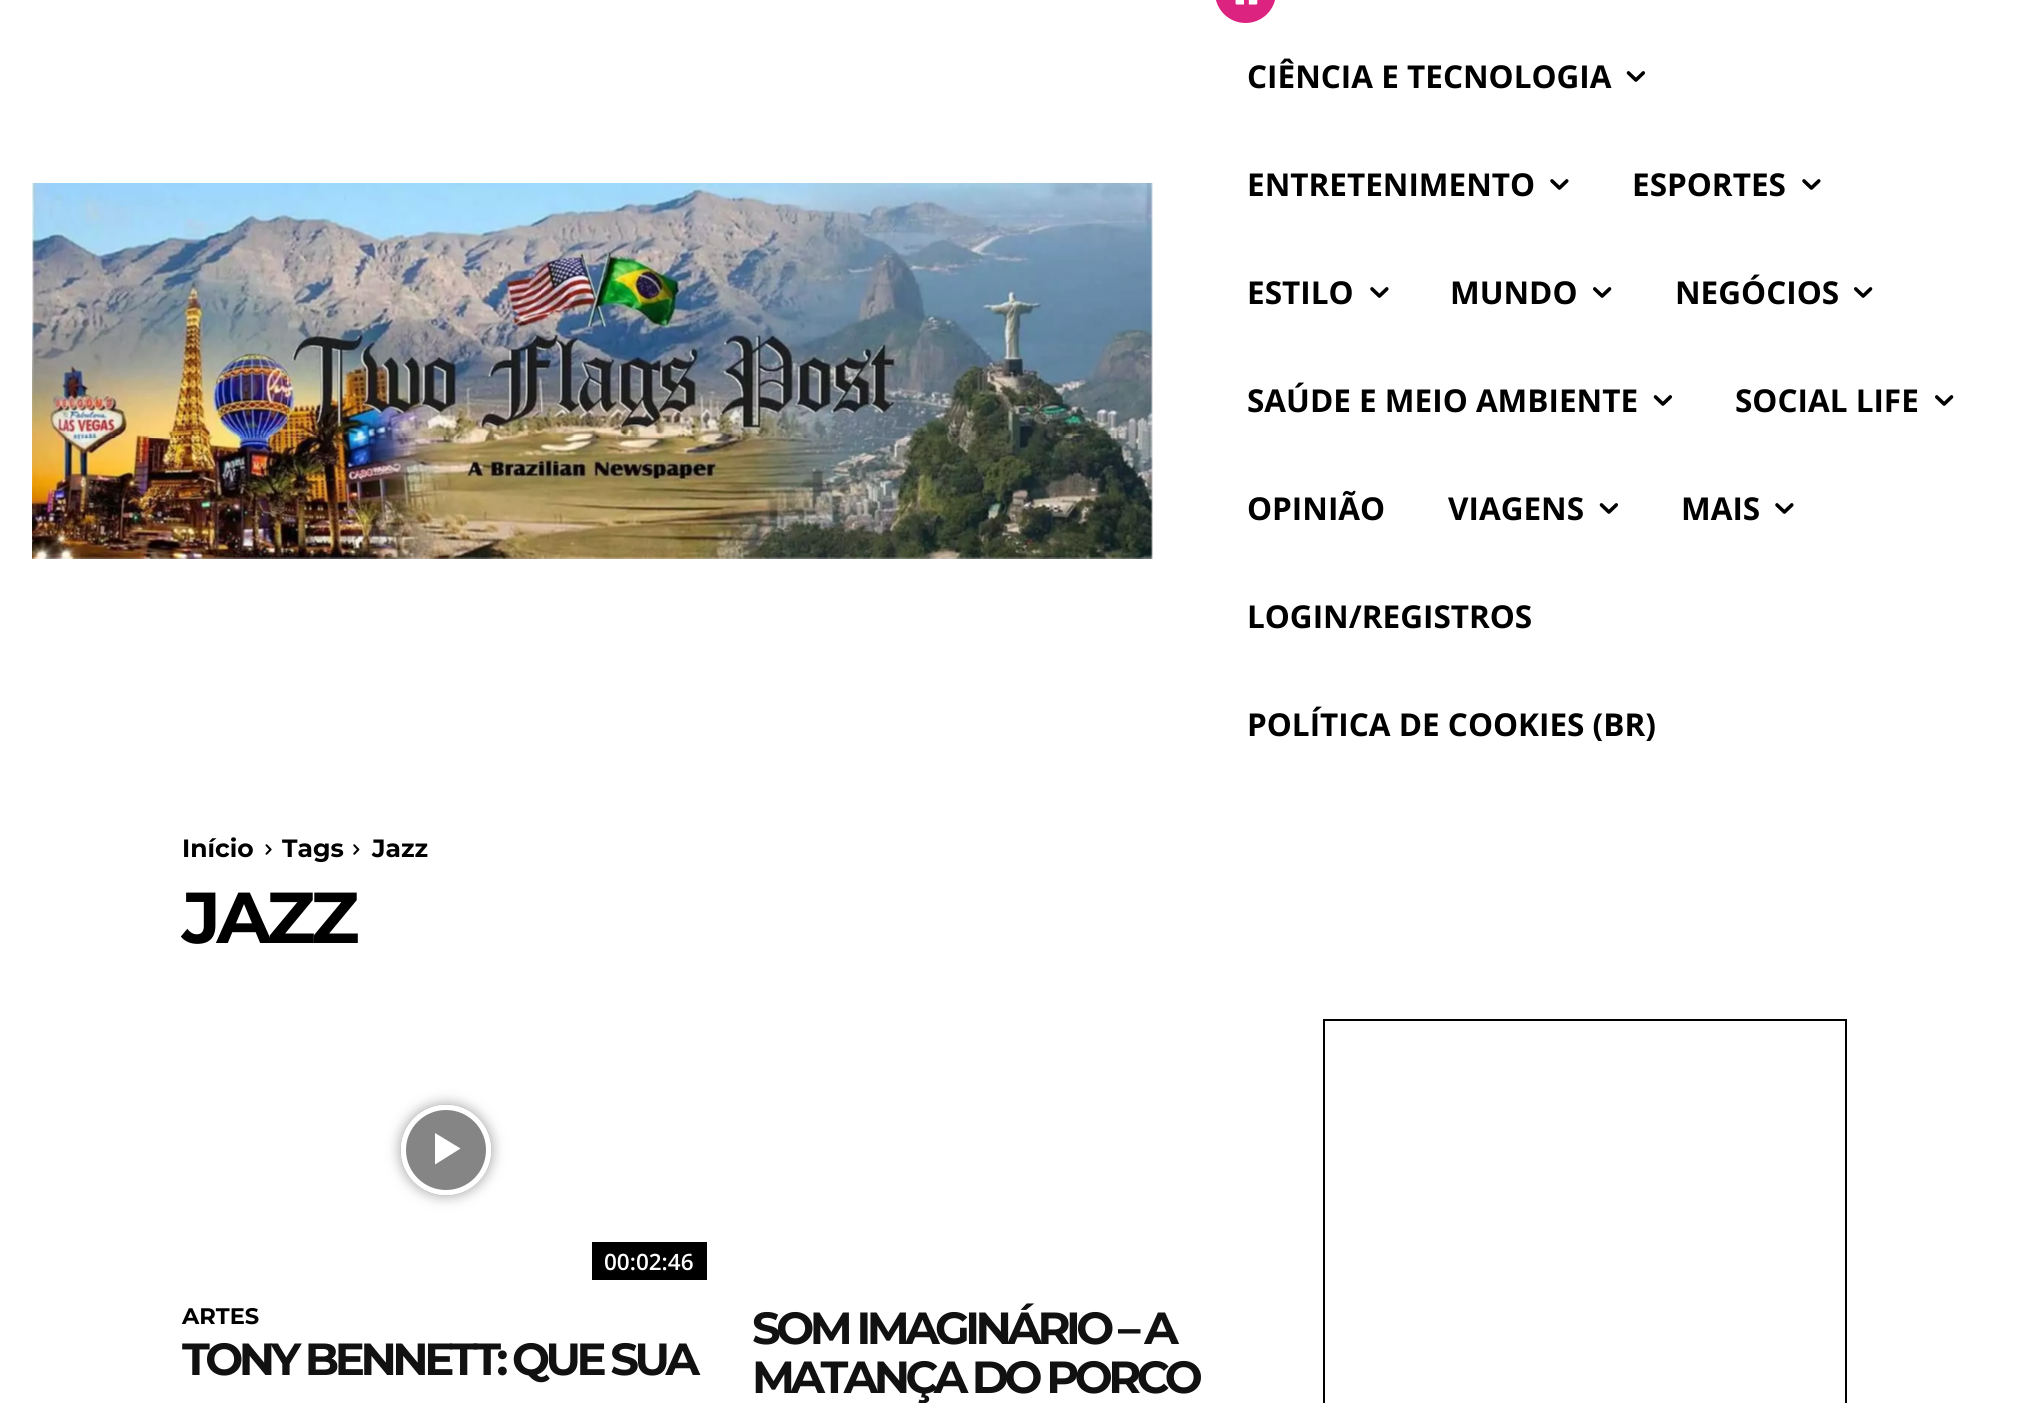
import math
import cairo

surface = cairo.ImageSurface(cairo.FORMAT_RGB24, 2028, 1403)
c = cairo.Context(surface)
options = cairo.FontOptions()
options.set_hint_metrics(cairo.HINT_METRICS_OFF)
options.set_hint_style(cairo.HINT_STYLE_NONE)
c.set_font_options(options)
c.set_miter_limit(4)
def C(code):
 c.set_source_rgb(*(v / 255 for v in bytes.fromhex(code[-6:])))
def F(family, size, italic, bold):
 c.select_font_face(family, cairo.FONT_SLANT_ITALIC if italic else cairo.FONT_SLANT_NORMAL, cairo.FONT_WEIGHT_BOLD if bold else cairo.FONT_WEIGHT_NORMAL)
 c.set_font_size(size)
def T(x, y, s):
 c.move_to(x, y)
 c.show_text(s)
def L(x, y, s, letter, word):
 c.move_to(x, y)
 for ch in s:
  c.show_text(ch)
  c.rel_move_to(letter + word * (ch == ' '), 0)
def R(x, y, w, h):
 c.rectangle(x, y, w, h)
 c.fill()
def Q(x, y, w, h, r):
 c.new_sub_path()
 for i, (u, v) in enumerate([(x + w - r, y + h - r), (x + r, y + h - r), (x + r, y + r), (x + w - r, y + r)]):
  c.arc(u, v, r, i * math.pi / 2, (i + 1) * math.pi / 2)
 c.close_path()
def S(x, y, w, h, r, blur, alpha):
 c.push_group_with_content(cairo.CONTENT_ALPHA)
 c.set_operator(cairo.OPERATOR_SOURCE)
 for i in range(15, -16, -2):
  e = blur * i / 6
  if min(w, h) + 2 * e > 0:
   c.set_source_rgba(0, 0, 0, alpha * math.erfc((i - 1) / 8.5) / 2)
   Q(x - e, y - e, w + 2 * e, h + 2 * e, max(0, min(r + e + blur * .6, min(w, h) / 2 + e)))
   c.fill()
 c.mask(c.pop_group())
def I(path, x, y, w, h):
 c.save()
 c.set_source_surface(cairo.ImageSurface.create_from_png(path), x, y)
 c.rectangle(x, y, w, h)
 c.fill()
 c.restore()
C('ffffff')
c.paint()
I('1.png',32,183,1121,376)
C('dd2380')
Q(1215,-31,61,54,30.5)
c.fill()
I('2.png',1235,0,23,5)
F('Open Sans',31.5,0,1)
C('000000')
T(1247,88,'CIÊNCIA E TECNOLOGIA')
I('3.png',1626,71,19,11)
T(1247,196,'ENTRETENIMENTO')
I('4.png',1550,179,19,11)
T(1632,196,'ESPORTES')
I('4.png',1802,179,19,11)
T(1247,304,'ESTILO')
I('4.png',1370,287,19,11)
T(1450,304,'MUNDO')
I('5.png',1593,287,19,11)
T(1675,304,'NEGÓCIOS')
I('5.png',1854,287,19,11)
T(1247,412,'SAÚDE E MEIO AMBIENTE')
I('3.png',1653,395,19,11)
T(1735,412,'SOCIAL LIFE')
I('5.png',1935,395,19,11)
T(1247,520,'OPINIÃO')
T(1448,520,'VIAGENS')
I('3.png',1599,503,19,11)
T(1681,520,'MAIS')
I('4.png',1775,503,19,11)
T(1247,628,'LOGIN/REGISTROS')
T(1247,736,'POLÍTICA DE COOKIES (BR)')
F('Montserrat',25,0,1)
T(182,857,'Início')
I('6.png',265,844,7,11)
T(282,857,'Tags')
I('7.png',353,844,7,11)
T(372,857,'Jazz')
F('Montserrat',72,0,1)
L(182,943,'JAZZ',-4.5,0)
c.save()
c.set_fill_rule(cairo.FILL_RULE_EVEN_ODD)
c.new_path()
c.move_to(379,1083)
c.line_to(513,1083)
c.line_to(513,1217)
c.line_to(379,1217)
c.close_path()
c.move_to(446,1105)
c.curve_to(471,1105,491,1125,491,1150)
c.curve_to(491,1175,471,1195,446,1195)
c.curve_to(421,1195,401,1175,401,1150)
c.curve_to(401,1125,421,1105,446,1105)
c.close_path()
c.clip()
C('000000')
S(401,1105,90,90,45,7,.4)
c.restore()
c.set_source_rgba(0,0,0,0.48)
c.arc(446,1150,42.5,0,2 * math.pi)
c.fill_preserve()
C('ffffff')
c.set_line_width(5)
c.stroke()
c.new_path()
c.move_to(435,1133)
c.line_to(435,1164.5)
c.line_to(460.5,1148.5)
c.close_path()
c.fill()
C('000000')
R(592,1242,115,38)
F('Open Sans SemiBold',22.5,0,0)
C('ffffff')
T(604,1270,'00:02:46')
F('Montserrat',22.5,0,1)
C('000000')
T(182,1324,'ARTES')
F('Montserrat',45,0,1)
C('111111')
L(182,1375,'TONY BENNETT: QUE SUA',-4.5,0)
L(752,1344,'SOM IMAGINÁRIO – A',-4.5,0)
L(752,1393,'MATANÇA DO PORCO',-4.5,0)
c.rectangle(1324,1020,522,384)
C('000000')
c.set_line_width(2)
c.stroke()
surface.write_to_png('o.png')
